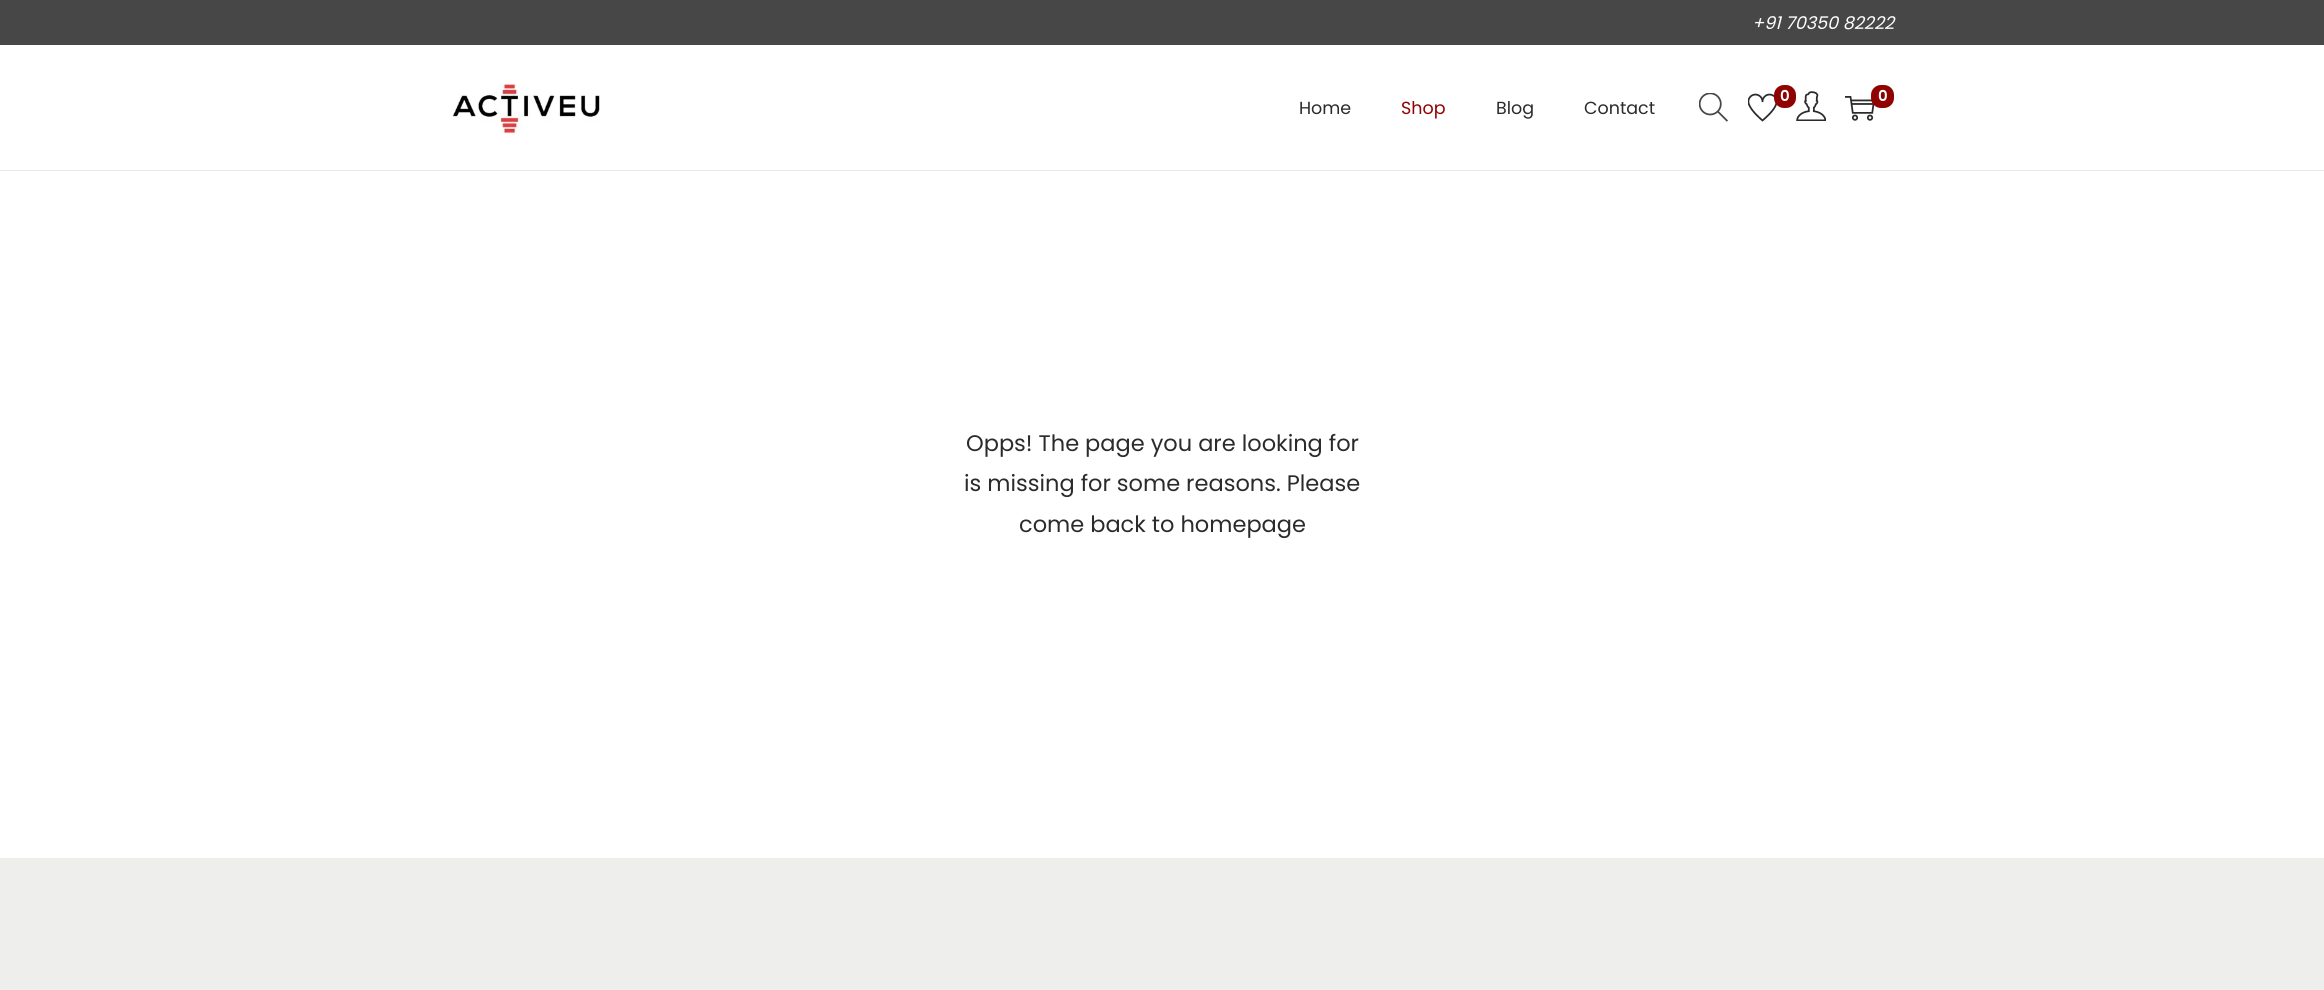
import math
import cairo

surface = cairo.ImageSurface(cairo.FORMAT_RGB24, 2324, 990)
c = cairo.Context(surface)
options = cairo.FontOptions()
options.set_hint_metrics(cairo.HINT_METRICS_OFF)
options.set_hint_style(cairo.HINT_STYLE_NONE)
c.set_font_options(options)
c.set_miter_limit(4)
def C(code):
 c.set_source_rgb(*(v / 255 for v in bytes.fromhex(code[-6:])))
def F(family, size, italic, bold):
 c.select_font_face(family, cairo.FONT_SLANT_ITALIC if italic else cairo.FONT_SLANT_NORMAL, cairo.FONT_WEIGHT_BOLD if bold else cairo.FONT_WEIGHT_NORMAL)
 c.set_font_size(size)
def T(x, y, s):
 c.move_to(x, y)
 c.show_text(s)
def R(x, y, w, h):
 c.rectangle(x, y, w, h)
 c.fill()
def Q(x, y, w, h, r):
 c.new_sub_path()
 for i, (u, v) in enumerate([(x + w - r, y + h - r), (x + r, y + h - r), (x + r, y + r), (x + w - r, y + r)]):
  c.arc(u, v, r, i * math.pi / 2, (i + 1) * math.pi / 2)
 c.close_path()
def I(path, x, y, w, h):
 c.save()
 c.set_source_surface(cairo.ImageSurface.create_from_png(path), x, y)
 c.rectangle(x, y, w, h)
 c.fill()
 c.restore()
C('ffffff')
c.paint()
C('474747')
R(0,0,2324,45)
F('Poppins',17.5,1,0)
C('ffffff')
T(1752,29,'+91 70350 82222')
C('eaeaea')
R(0,170,2324,1)
I('1.png',452,83,148,51)
I('2.png',1699,93,29,29)
I('3.png',1748,93,29,29)
C('8f0303')
Q(1774,85,22,23,10)
c.fill()
F('Poppins SemiBold',15,0,0)
C('ffffff')
T(1780,101,'0')
I('4.png',1796,91,30,30)
I('5.png',1845,96,30,25)
C('8f0303')
Q(1871,85,23,23,10)
c.fill()
C('ffffff')
T(1878,101,'0')
F('Poppins',17.5,0,0)
C('2b2b2b')
T(1299,114,'Home')
C('8f0303')
T(1401,114,'Shop')
C('2b2b2b')
T(1496,114,'Blog')
T(1584,114,'Contact')
F('Poppins',22.5,0,0)
T(966,451,'Opps! The page you are looking for')
T(964,491,'is missing for some reasons. Please')
T(1019,532,'come back to homepage')
C('eeeeec')
R(0,858,2324,132)
surface.write_to_png('o.png')
